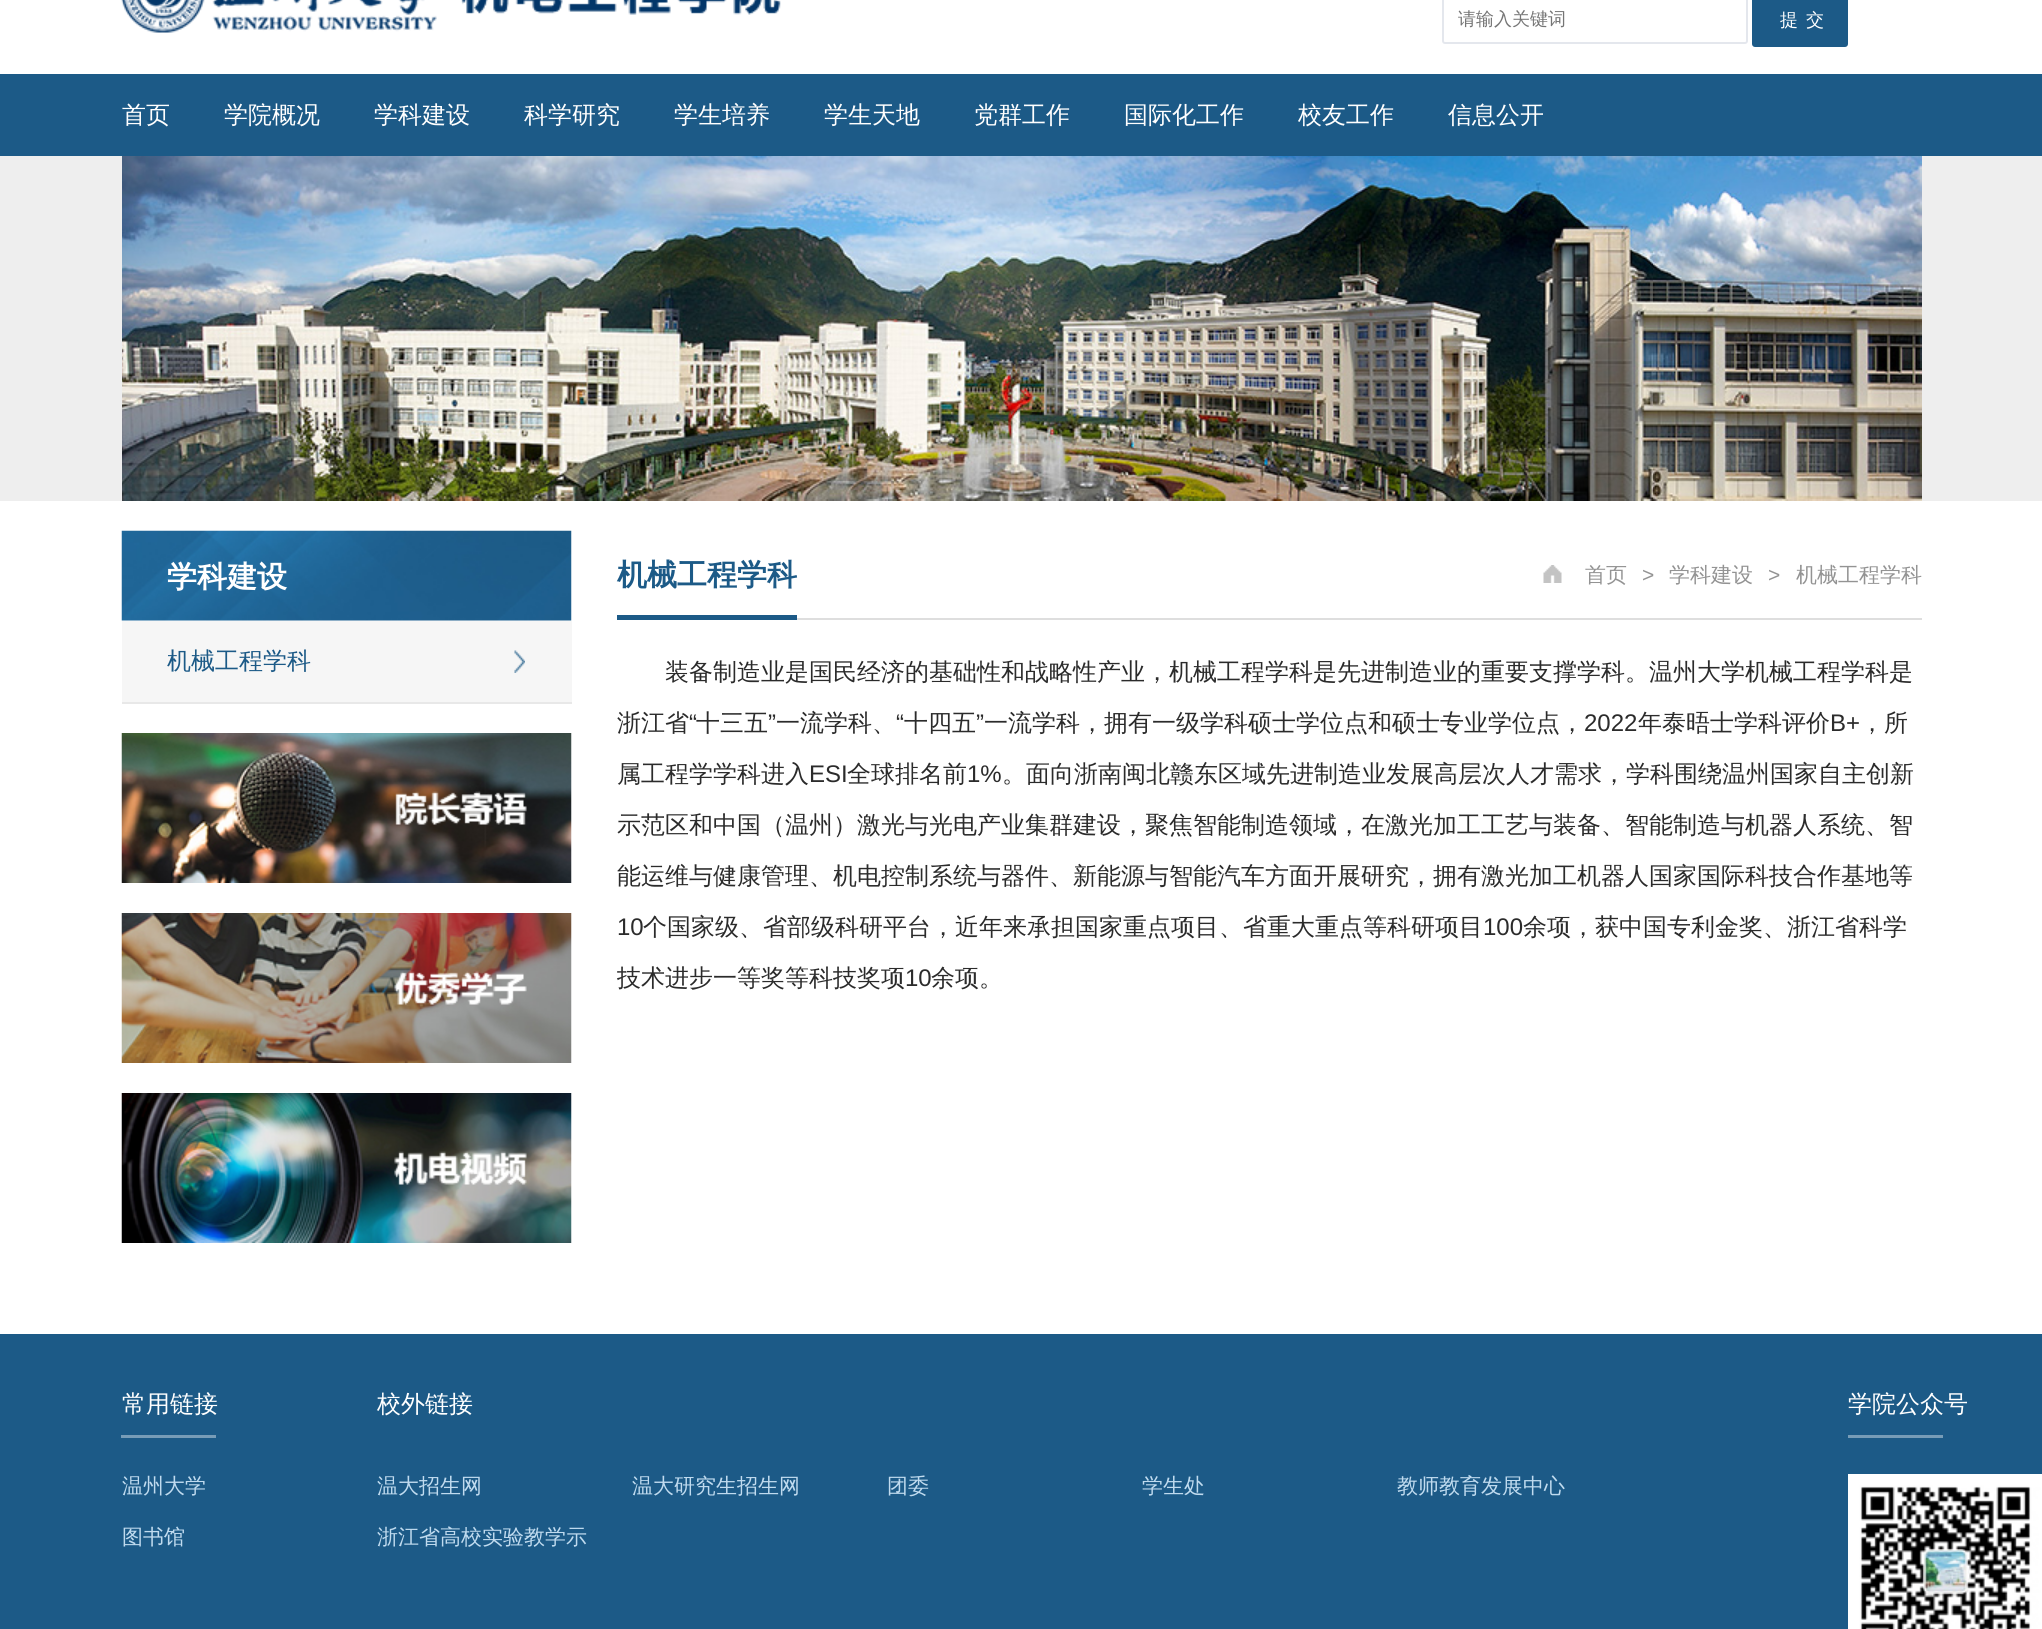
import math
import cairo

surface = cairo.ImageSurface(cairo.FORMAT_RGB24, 2042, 1629)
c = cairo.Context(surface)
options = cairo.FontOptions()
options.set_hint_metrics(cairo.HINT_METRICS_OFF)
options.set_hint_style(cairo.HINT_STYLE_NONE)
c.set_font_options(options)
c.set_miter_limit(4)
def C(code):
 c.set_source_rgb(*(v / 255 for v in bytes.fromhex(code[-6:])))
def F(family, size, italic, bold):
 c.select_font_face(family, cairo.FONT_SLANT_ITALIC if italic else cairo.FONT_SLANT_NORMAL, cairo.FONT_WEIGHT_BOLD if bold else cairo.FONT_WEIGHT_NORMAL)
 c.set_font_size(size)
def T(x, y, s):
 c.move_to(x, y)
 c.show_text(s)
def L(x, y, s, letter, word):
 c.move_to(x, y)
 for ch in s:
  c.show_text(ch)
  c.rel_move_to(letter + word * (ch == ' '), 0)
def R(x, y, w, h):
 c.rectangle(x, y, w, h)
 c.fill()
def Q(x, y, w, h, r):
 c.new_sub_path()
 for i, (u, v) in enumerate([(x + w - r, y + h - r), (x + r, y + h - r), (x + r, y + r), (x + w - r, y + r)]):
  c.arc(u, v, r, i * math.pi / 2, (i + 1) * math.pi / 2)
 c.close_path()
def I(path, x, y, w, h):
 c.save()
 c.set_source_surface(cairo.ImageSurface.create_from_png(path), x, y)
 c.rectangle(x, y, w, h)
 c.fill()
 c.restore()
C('ffffff')
c.paint()
I('1.png',121,0,660,33)
Q(1443,-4,304,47,2)
C('e4e7ed')
c.stroke()
F('WenQuanYi Zen Hei Medium',18,0,0)
C('757575')
T(1458,25,'请输入关键词')
C('1c5a87')
Q(1752,-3,96,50,3)
c.fill()
C('ffffff')
L(1780,26,'提交',8,0)
C('1c5a87')
R(0,74,2042,82)
F('WenQuanYi Zen Hei Medium',24,0,0)
C('ffffff')
T(122,123,'首页')
T(224,123,'学院概况')
T(374,123,'学科建设')
T(524,123,'科学研究')
T(674,123,'学生培养')
T(824,123,'学生天地')
T(974,123,'党群工作')
T(1124,123,'国际化工作')
T(1298,123,'校友工作')
T(1448,123,'信息公开')
C('eeeeee')
R(0,156,2042,345)
I('2.png',122,156,1800,345)
I('3.png',121,530,451,91)
F('WenQuanYi Zen Hei',30,0,1)
C('ffffff')
T(167,587,'学科建设')
C('f6f6f6')
R(122,621,450,81)
C('e8e8e8')
R(122,702,450,2)
I('4.png',514,650,11,23)
F('WenQuanYi Zen Hei Medium',24,0,0)
C('1c5a87')
T(167,669,'机械工程学科')
I('5.png',121,733,451,150)
I('6.png',121,913,451,150)
I('7.png',121,1093,451,150)
C('dedede')
R(797,618,1125,2)
F('WenQuanYi Zen Hei',30,0,1)
C('1c5a87')
T(617,585,'机械工程学科')
R(617,615,180,5)
I('8.png',1543,565,19,18)
F('WenQuanYi Zen Hei Medium',21,0,0)
C('939393')
T(1585,582,'首页')
F('Liberation Sans',21,0,0)
T(1642,582,'>')
F('WenQuanYi Zen Hei Medium',21,0,0)
T(1669,582,'学科建设')
F('Liberation Sans',21,0,0)
T(1768,582,'>')
F('WenQuanYi Zen Hei Medium',21,0,0)
T(1796,582,'机械工程学科')
F('WenQuanYi Zen Hei Medium',24,0,0)
C('2b2b2b')
T(665,680,'装备制造业是国民经济的基础性和战略性产业，机械工程学科是先进制造业的重要支撑学科。温州大学机械工程学科是')
T(617,731,'浙江省')
F('Liberation Sans',24,0,0)
T(689,731,'“')
F('WenQuanYi Zen Hei Medium',24,0,0)
T(696,731,'十三五')
F('Liberation Sans',24,0,0)
T(768,731,'”')
F('WenQuanYi Zen Hei Medium',24,0,0)
T(776,731,'一流学科、')
F('Liberation Sans',24,0,0)
T(896,731,'“')
F('WenQuanYi Zen Hei Medium',24,0,0)
T(904,731,'十四五')
F('Liberation Sans',24,0,0)
T(976,731,'”')
F('WenQuanYi Zen Hei Medium',24,0,0)
T(984,731,'一流学科，拥有一级学科硕士学位点和硕士专业学位点，')
F('Liberation Sans',24,0,0)
T(1584,731,'2022')
F('WenQuanYi Zen Hei Medium',24,0,0)
T(1638,731,'年泰晤士学科评价')
F('Liberation Sans',24,0,0)
T(1830,731,'B+')
F('WenQuanYi Zen Hei Medium',24,0,0)
T(1860,731,'，所')
T(617,782,'属工程学学科进入')
F('Liberation Sans',24,0,0)
T(809,782,'ESI')
F('WenQuanYi Zen Hei Medium',24,0,0)
T(847,782,'全球排名前')
F('Liberation Sans',24,0,0)
T(967,782,'1%')
F('WenQuanYi Zen Hei Medium',24,0,0)
T(1002,782,'。面向浙南闽北赣东区域先进制造业发展高层次人才需求，学科围绕温州国家自主创新')
T(617,833,'示范区和中国（温州）激光与光电产业集群建设，聚焦智能制造领域，在激光加工工艺与装备、智能制造与机器人系统、智')
T(617,884,'能运维与健康管理、机电控制系统与器件、新能源与智能汽车方面开展研究，拥有激光加工机器人国家国际科技合作基地等')
F('Liberation Sans',24,0,0)
T(617,935,'10')
F('WenQuanYi Zen Hei Medium',24,0,0)
T(643,935,'个国家级、省部级科研平台，近年来承担国家重点项目、省重大重点等科研项目')
F('Liberation Sans',24,0,0)
T(1483,935,'100')
F('WenQuanYi Zen Hei Medium',24,0,0)
T(1523,935,'余项，获中国专利金奖、浙江省科学')
c.save()
c.rectangle(617,620,1305,429)
c.clip()
T(617,986,'技术进步一等奖等科技奖项')
c.restore()
F('Liberation Sans',24,0,0)
T(905,986,'10')
F('WenQuanYi Zen Hei Medium',24,0,0)
T(931,986,'余项。')
C('1c5a87')
R(0,1334,2042,295)
C('779cb7')
R(121,1435,95,3)
C('ffffff')
T(122,1412,'常用链接')
T(377,1412,'校外链接')
F('WenQuanYi Zen Hei Medium',21,0,0)
C('c0dbef')
T(122,1493,'温州大学')
T(377,1493,'温大招生网')
T(632,1493,'温大研究生招生网')
T(887,1493,'团委')
T(1142,1493,'学生处')
T(1397,1493,'教师教育发展中心')
T(122,1544,'图书馆')
T(377,1544,'浙江省高校实验教学示')
C('779cb7')
R(1848,1435,95,3)
F('WenQuanYi Zen Hei Medium',24,0,0)
C('ffffff')
T(1848,1412,'学院公众号')
I('9.png',1848,1474,194,155)
surface.write_to_png('o.png')
